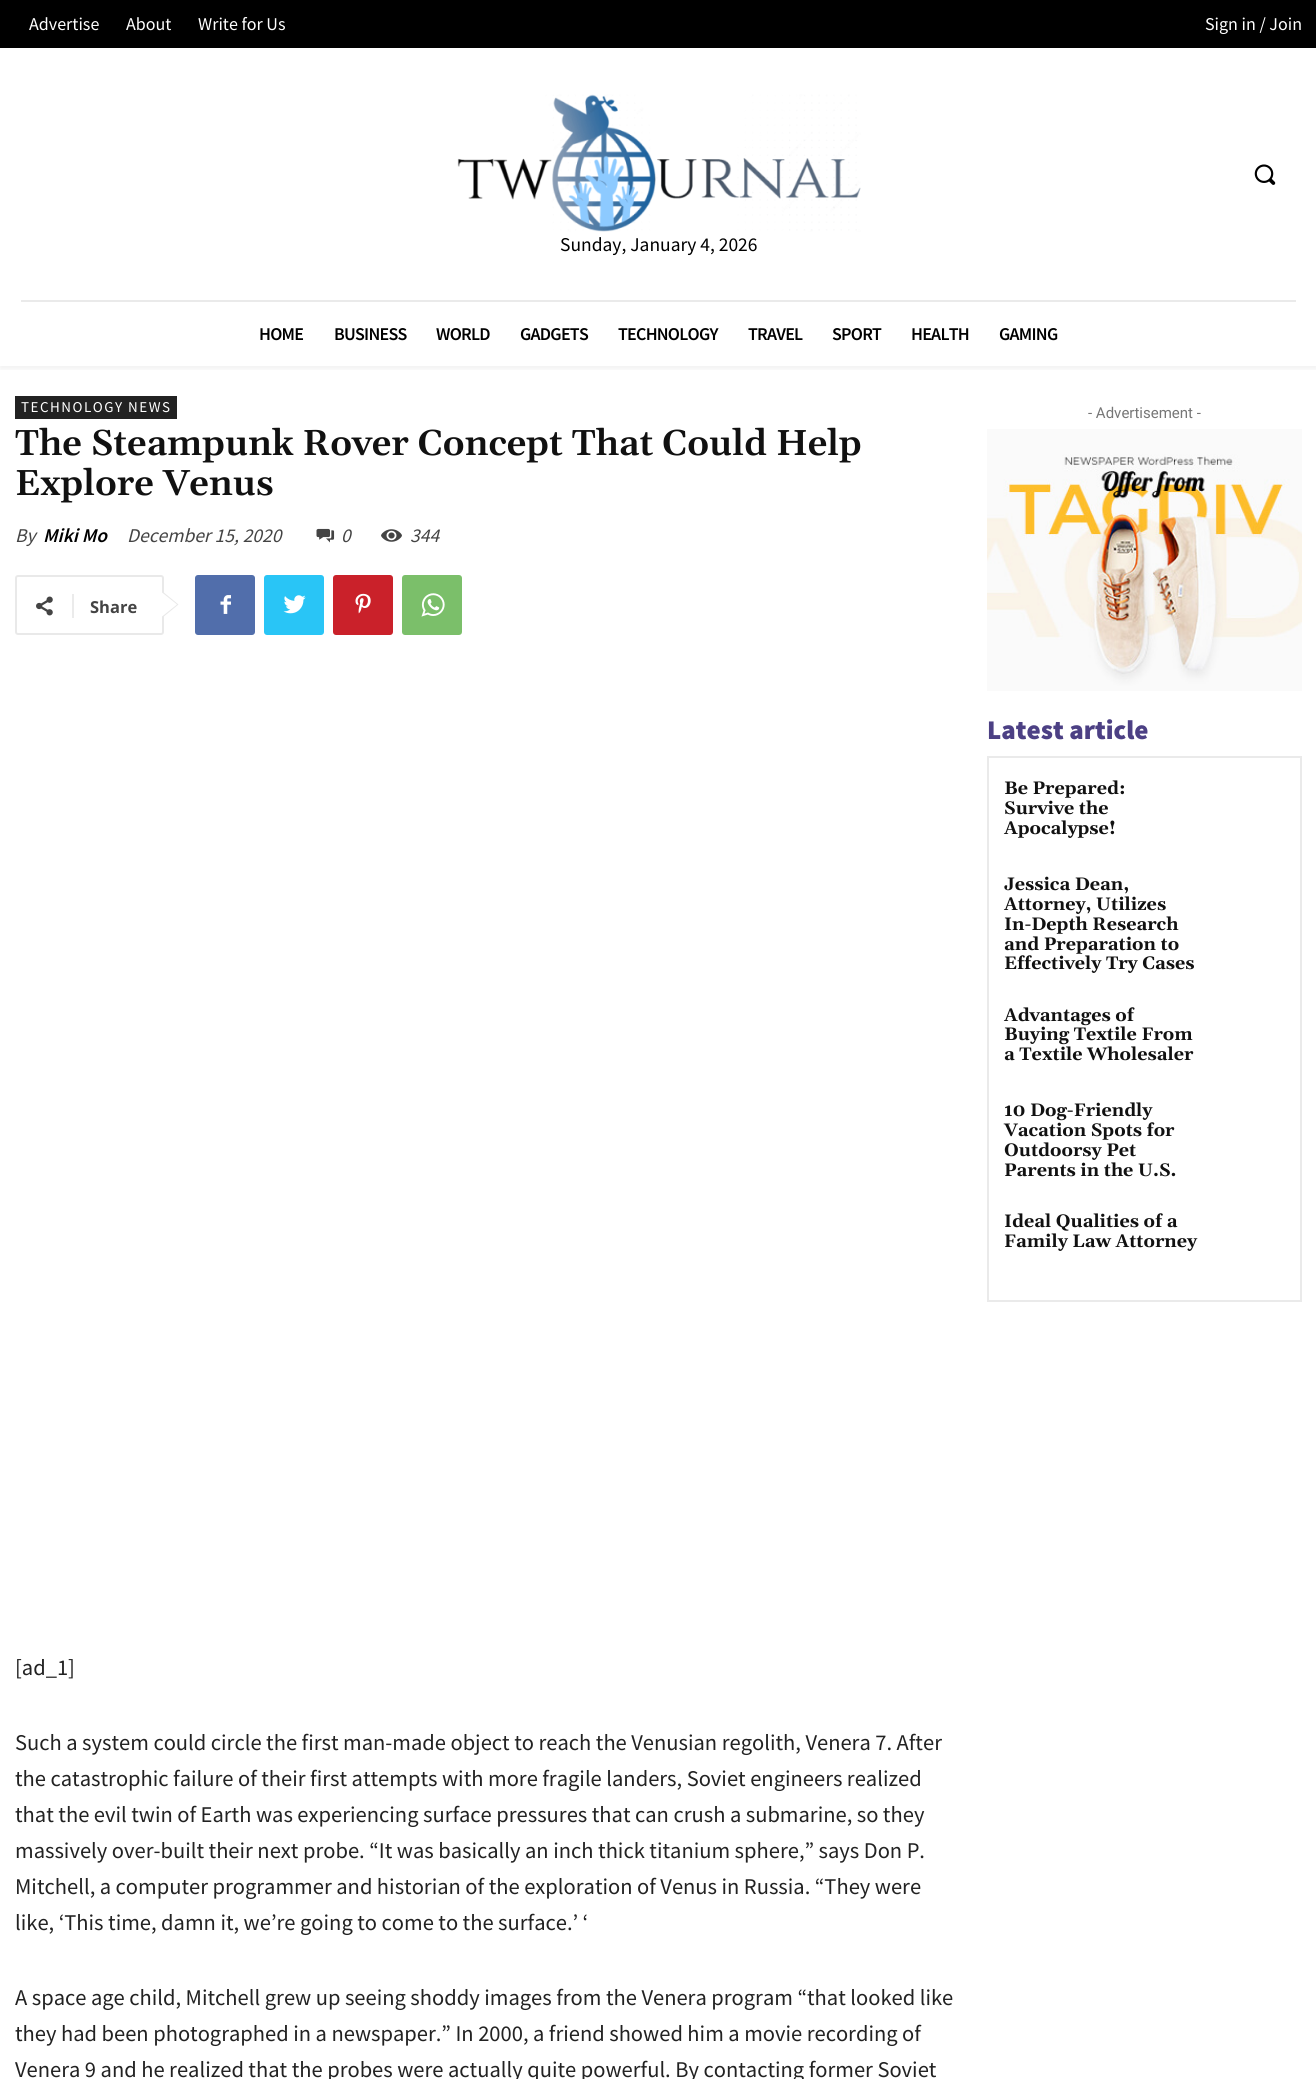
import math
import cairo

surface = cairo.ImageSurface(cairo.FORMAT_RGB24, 1316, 2079)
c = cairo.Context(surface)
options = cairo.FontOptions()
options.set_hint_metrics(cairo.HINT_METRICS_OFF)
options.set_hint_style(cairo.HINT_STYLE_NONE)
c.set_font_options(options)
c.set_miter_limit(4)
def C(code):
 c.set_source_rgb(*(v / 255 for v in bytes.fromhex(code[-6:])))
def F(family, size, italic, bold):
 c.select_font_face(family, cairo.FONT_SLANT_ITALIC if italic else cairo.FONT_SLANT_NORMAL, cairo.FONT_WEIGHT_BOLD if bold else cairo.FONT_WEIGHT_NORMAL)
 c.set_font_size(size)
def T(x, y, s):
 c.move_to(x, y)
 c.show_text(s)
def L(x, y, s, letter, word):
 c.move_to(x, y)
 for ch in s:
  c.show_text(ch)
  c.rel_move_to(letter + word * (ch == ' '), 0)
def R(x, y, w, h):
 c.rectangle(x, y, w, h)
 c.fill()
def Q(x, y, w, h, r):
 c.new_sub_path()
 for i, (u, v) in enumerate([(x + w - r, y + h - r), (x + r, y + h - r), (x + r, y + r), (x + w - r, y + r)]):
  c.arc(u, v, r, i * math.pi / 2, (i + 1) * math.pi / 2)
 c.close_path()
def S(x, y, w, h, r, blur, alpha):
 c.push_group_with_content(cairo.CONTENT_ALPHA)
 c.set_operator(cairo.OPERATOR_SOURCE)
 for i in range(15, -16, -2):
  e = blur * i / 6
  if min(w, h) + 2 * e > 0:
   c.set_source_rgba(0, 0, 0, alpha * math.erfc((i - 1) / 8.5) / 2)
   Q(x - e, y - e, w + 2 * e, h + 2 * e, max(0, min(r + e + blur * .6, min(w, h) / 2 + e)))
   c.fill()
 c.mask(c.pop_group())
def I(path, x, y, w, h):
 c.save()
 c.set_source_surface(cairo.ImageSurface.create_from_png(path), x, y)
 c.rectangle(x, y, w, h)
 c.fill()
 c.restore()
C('ffffff')
c.paint()
C('000000')
R(0,0,1316,48)
F('Source Sans Pro',18,0,0)
C('ffffff')
T(29,30,'Advertise')
T(126,30,'About')
T(198,30,'Write for Us')
T(1205,30,'Sign in / Join')
I('1.png',1254,164,22,21)
I('2.png',457,94,404,138)
F('Source Sans Pro',19.5,0,0)
C('000000')
T(560,251,'Sunday, January 4, 2026')
C('eaeaea')
R(21,300,1275,2)
c.save()
c.rectangle(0,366,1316,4)
c.clip()
C('000000')
S(0,258,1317,111,0,3,.06)
c.restore()
F('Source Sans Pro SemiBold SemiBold',18,0,0)
C('000000')
L(259,340,'HOME',-.75,0)
L(334,340,'BUSINESS',-.75,0)
L(436,340,'WORLD',-.75,0)
L(520,340,'GADGETS',-.75,0)
L(618,340,'TECHNOLOGY',-.75,0)
L(748,340,'TRAVEL',-.75,0)
L(832,340,'SPORT',-.75,0)
L(911,340,'HEALTH',-.75,0)
L(999,340,'GAMING',-.75,0)
C('222222')
R(15,396,162,23)
F('Source Sans Pro',15,0,0)
C('ffffff')
L(21,412,'TECHNOLOGY NEWS',1.5,0)
F('Gelasio SemiBold',36,0,0)
C('111111')
T(15,455,'The Steampunk Rover Concept That Could Help')
T(15,495,'Explore Venus')
F('Source Sans Pro',19.5,1,0)
C('444444')
T(15,542,'By')
F('Source Sans Pro SemiBold SemiBold',19.5,1,0)
C('000000')
T(43,542,'Miki Mo')
F('Source Sans Pro',19.5,1,0)
C('444444')
T(127,542,'December 15, 2020')
I('3.png',316,528,19,15)
T(341,542,'0')
I('4.png',381,529,21,13)
T(410,542,'344')
Q(16,576,147,58,2)
C('e9e9e9')
c.stroke()
c.new_path()
c.move_to(162,618)
c.line_to(162,591)
c.line_to(178.5,604.5)
c.close_path()
c.fill()
I('5.png',36,596,17,20)
C('ebebeb')
R(72,594,2,24)
F('Open Sans',16.5,0,1)
C('444444')
T(90,613,'Share')
C('ffffff')
c.new_path()
c.move_to(162,616.5)
c.line_to(162,592.5)
c.line_to(177,604.5)
c.close_path()
c.fill()
C('516eab')
Q(195,575,60,60,3)
c.fill()
I('6.png',220,595,11,19)
C('29c5f6')
Q(264,575,60,60,3)
c.fill()
I('7.png',283,595,23,19)
C('ca212a')
Q(333,575,60,60,3)
c.fill()
I('8.png',355,593,16,21)
C('7bbf6a')
Q(402,575,60,60,3)
c.fill()
I('9.png',421,593,24,24)
F('Source Sans Pro',22.5,0,0)
C('222222')
T(15,1675,'[ad_1]')
T(15,1750,'Such a system could circle the first man-made object to reach the Venusian regolith, Venera 7. After')
T(15,1786,'the catastrophic failure of their first attempts with more fragile landers, Soviet engineers realized')
T(15,1822,'that the evil twin of Earth was experiencing surface pressures that can crush a submarine, so they')
T(15,1858,'massively over-built their next probe. “It was basically an inch thick titanium sphere,” says Don P.')
T(15,1894,'Mitchell, a computer programmer and historian of the exploration of Venus in Russia. “They were')
T(15,1930,'like, ‘This time, damn it, we’re going to come to the surface.’ ‘')
T(15,2005,'A space age child, Mitchell grew up seeing shoddy images from the Venera program “that looked like')
T(15,2041,'they had been photographed in a newspaper.” In 2000, a friend showed him a movie recording of')
T(15,2077,'Venera 9 and he realized that the probes were actually quite powerful. By contacting former Soviet')
F('Roboto',15,0,0)
C('767676')
T(1088,418,'- Advertisement -')
I('10.png',987,429,315,262)
F('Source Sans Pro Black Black',27,0,0)
C('4c4084')
T(987,739,'Latest article')
c.rectangle(988,757,313,544)
C('eaeaea')
c.stroke()
F('Gelasio',18,0,1)
C('111111')
T(1004,794,'Be Prepared:')
T(1004,814,'Survive the')
T(1004,834,'Apocalypse!')
T(1004,890,'Jessica Dean,')
T(1004,910,'Attorney, Utilizes')
T(1004,930,'In-Depth Research')
T(1004,950,'and Preparation to')
T(1004,969,'Effectively Try Cases')
T(1004,1021,'Advantages of')
T(1004,1040,'Buying Textile From')
T(1004,1060,'a Textile Wholesaler')
T(1004,1116,'10 Dog-Friendly')
T(1004,1136,'Vacation Spots for')
T(1004,1156,'Outdoorsy Pet')
T(1004,1176,'Parents in the U.S.')
T(1004,1227,'Ideal Qualities of a')
T(1004,1247,'Family Law Attorney')
surface.write_to_png('o.png')
